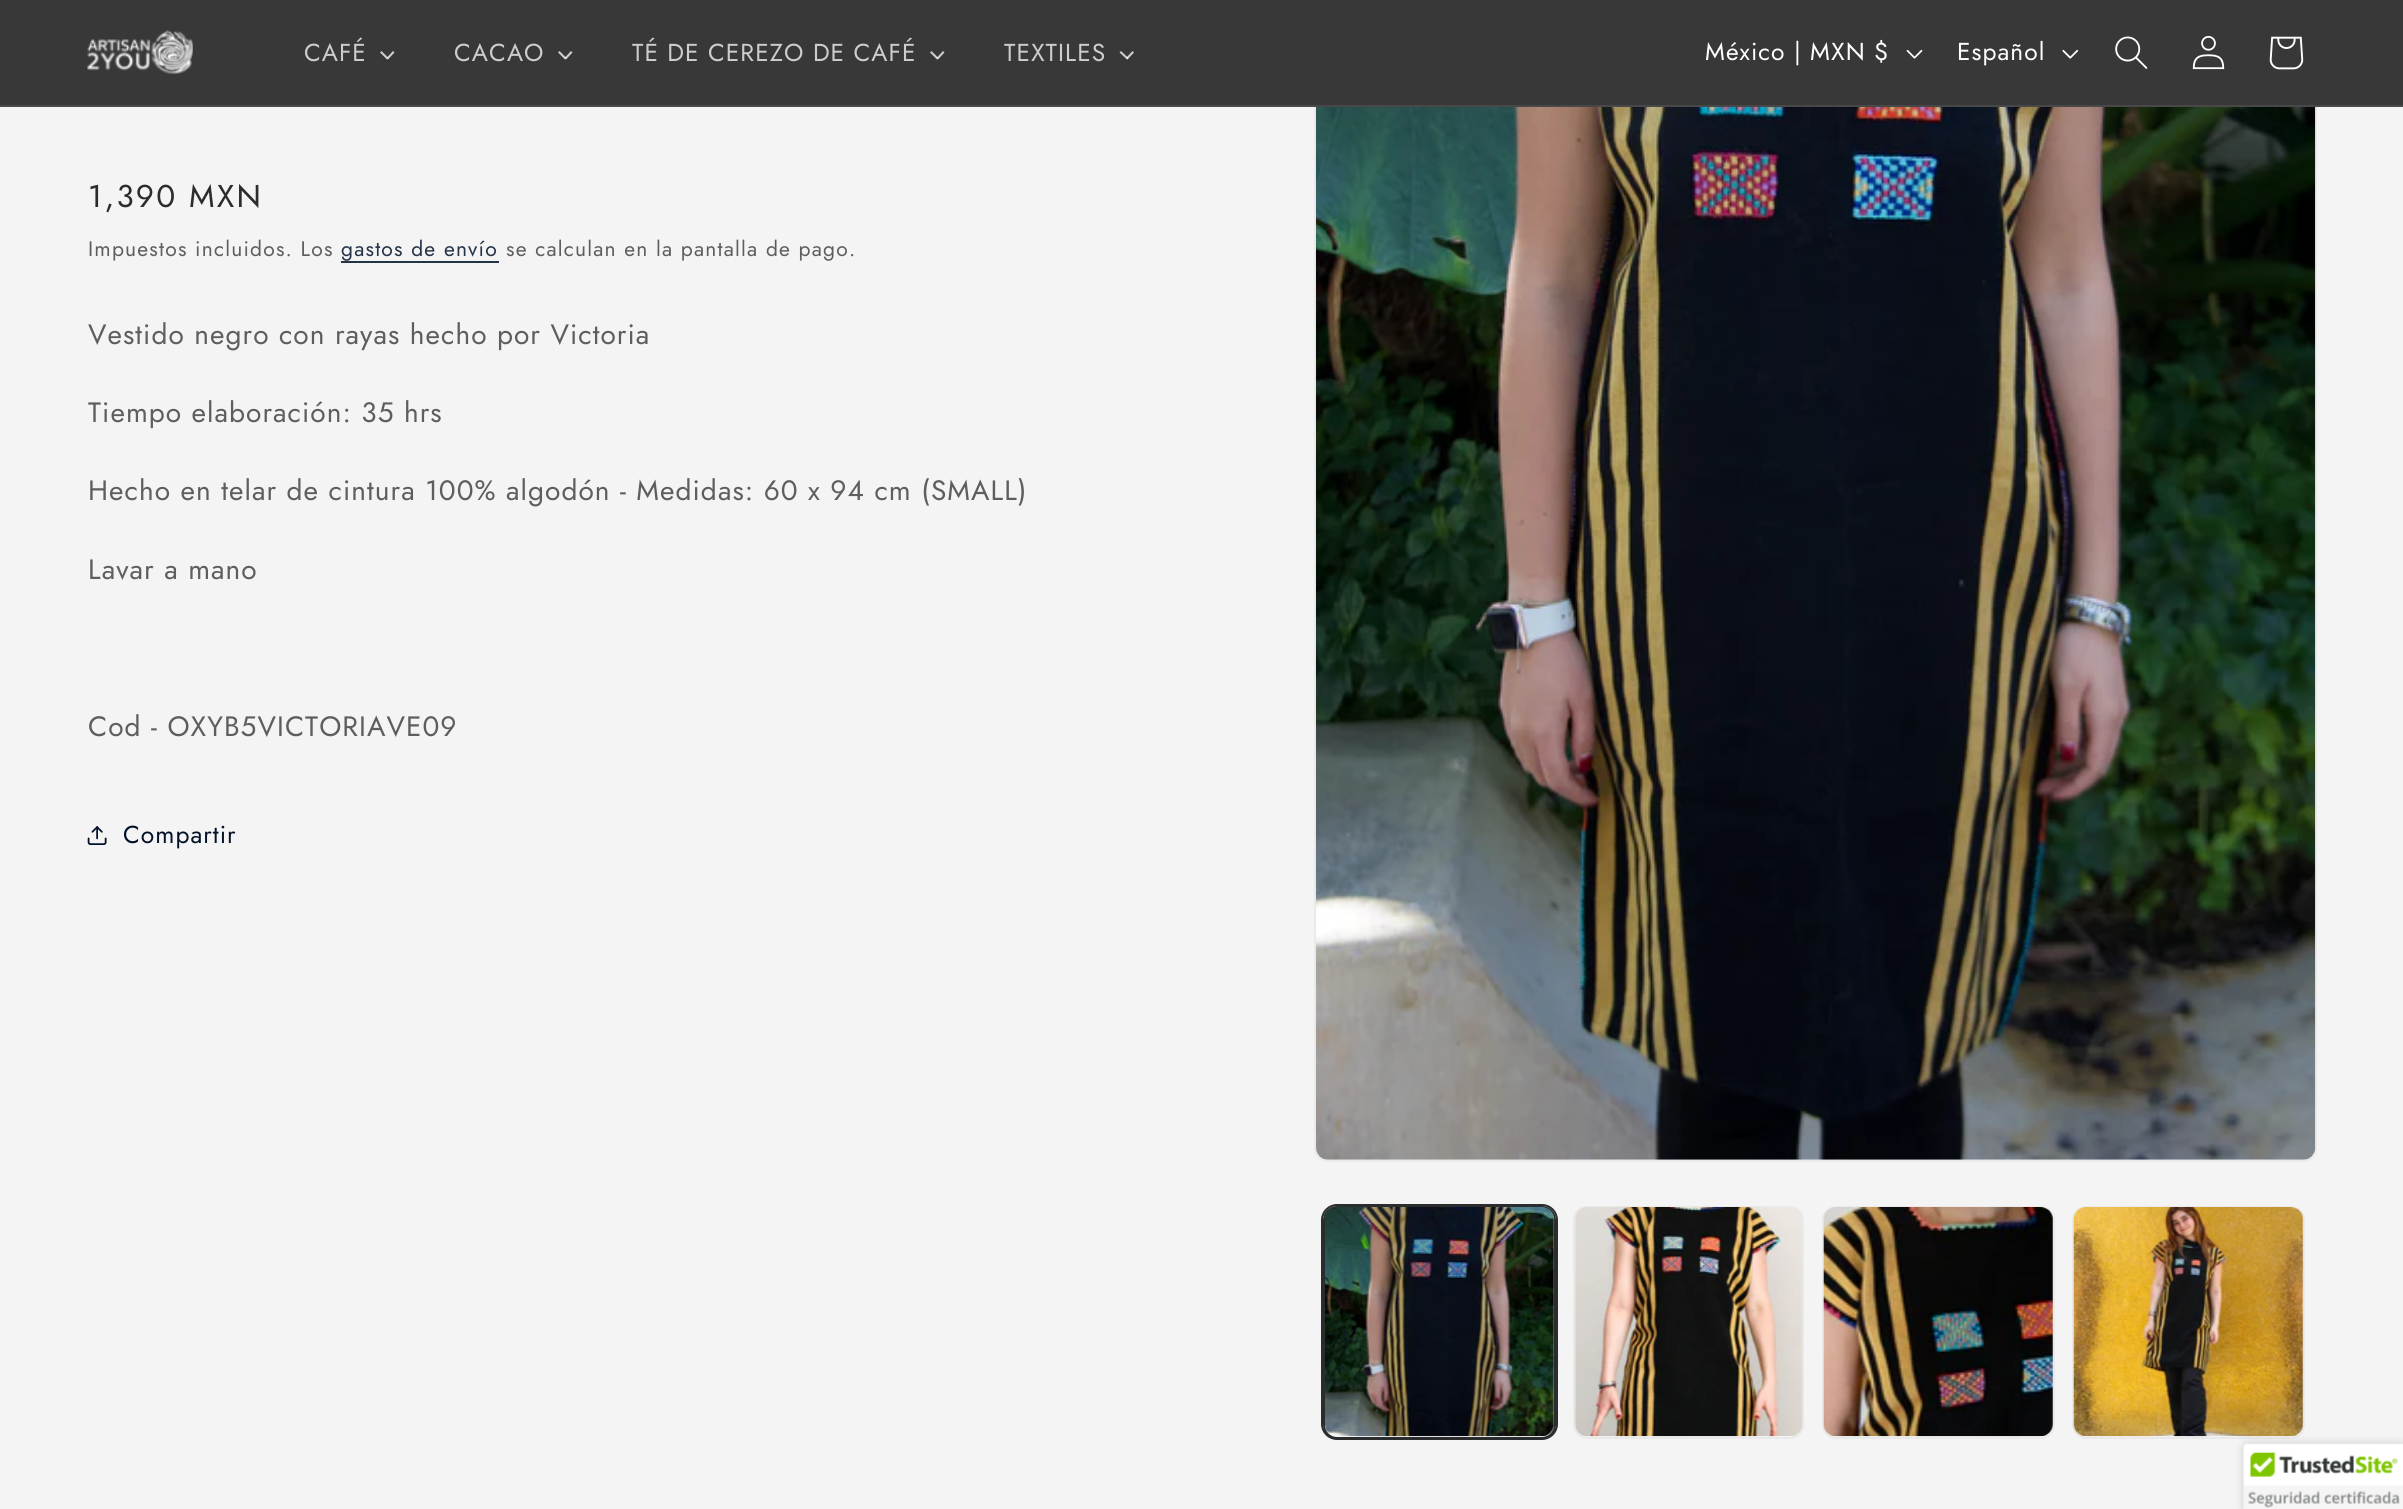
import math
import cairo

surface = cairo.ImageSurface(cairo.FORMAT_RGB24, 2403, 1509)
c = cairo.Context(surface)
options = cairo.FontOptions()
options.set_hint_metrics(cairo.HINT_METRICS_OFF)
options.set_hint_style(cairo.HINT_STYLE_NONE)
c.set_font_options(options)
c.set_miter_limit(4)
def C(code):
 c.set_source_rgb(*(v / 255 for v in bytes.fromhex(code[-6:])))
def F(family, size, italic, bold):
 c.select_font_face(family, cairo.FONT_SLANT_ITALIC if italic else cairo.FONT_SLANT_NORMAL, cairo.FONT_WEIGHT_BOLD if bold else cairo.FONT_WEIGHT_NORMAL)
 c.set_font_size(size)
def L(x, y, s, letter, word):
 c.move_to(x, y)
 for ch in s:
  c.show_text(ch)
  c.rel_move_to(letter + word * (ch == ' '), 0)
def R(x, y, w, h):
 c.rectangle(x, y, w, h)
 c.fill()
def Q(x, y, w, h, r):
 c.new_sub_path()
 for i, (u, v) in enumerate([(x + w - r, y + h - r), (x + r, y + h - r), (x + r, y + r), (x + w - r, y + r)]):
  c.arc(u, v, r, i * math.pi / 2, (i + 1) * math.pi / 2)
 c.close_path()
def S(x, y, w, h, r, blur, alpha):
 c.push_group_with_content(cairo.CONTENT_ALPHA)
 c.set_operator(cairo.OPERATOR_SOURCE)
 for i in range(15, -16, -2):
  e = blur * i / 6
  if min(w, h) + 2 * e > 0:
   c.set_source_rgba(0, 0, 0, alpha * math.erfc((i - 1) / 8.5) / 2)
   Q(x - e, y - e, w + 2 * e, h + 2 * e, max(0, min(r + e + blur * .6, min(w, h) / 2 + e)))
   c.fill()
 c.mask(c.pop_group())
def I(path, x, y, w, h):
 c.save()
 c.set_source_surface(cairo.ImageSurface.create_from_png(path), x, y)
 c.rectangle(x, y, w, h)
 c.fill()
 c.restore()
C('f4f4f4')
c.paint()
Q(1315,-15,1001,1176,13)
C('eaeaea')
c.stroke()
C('383838')
R(0,0,2403,105)
C('484848')
R(0,105,2403,2)
I('1.png',87,30,106,44)
F('Jost',24.5,0,0)
C('cdcdcd')
L(304,61,'CAFÉ',1.05,0)
c.new_path()
c.move_to(393,51)
c.line_to(394.5,52.5)
c.line_to(388,59.5)
c.line_to(386.5,58)
c.close_path()
c.fill()
c.set_source_rgba(1,1,1,0.75)
c.new_path()
c.move_to(381.5,51)
c.line_to(388.5,58)
c.line_to(387,59.5)
c.line_to(380,52.5)
c.close_path()
c.fill()
C('cdcdcd')
L(454,61,'CACAO',1.05,0)
c.new_path()
c.move_to(571,51)
c.line_to(572.5,52.5)
c.line_to(566,59.5)
c.line_to(564.5,58)
c.close_path()
c.fill()
c.set_source_rgba(1,1,1,0.75)
c.new_path()
c.move_to(559.5,51)
c.line_to(566.5,58)
c.line_to(565,59.5)
c.line_to(558,52.5)
c.close_path()
c.fill()
C('cdcdcd')
L(632,61,'TÉ DE CEREZO DE CAFÉ',1.05,0)
c.new_path()
c.move_to(943,51)
c.line_to(944.5,52.5)
c.line_to(938,59.5)
c.line_to(936.5,58)
c.close_path()
c.fill()
c.set_source_rgba(1,1,1,0.75)
c.new_path()
c.move_to(931.5,51)
c.line_to(938.5,58)
c.line_to(937,59.5)
c.line_to(930,52.5)
c.close_path()
c.fill()
C('cdcdcd')
L(1004,61,'TEXTILES',1.05,0)
c.new_path()
c.move_to(1132.5,51)
c.line_to(1134,52.5)
c.line_to(1127.5,59.5)
c.line_to(1126,58)
c.close_path()
c.fill()
c.set_source_rgba(1,1,1,0.75)
c.new_path()
c.move_to(1121,51)
c.line_to(1128.5,58)
c.line_to(1127,59.5)
c.line_to(1119.5,52.5)
c.close_path()
c.fill()
C('ffffff')
L(1705,60,'México | MXN $',1.05,0)
I('2.png',1906,49,17,10)
L(1957,60,'Español',1.05,0)
I('3.png',2062,49,17,10)
I('4.png',2115,36,33,33)
I('5.png',2192,35,33,35)
I('6.png',2269,36,35,34)
F('Jost',31.5,0,0)
C('2b2c2d')
L(88,207,'1,390 MXN',2.25,0)
F('Jost',21,0,0)
C('5d5e5f')
L(88,256,'Impuestos incluidos. Los',1.2,0)
C('253347')
L(341,256,'gastos de envío',1.2,0)
R(341,261,158,2)
C('5d5e5f')
L(506,256,'se calculan en la pantalla de pago.',1.2,0)
F('Jost',28,0,0)
L(88,344,'Vestido negro con rayas hecho por Victoria',1.05,0)
L(88,422,'Tiempo elaboración: 35 hrs',1.05,0)
L(88,500,'Hecho en telar de cintura 100% algodón - Medidas: 60 x 94 cm (SMALL)',1.05,0)
L(88,579,'Lavar a mano',1.05,0)
L(88,736,'Cod - OXYB5VICTORIAVE09',1.05,0)
I('7.png',87,826,20,19)
F('Jost',24.5,0,0)
C('001128')
L(123,843,'Compartir',1.05,0)
I('8.png',1316,107,1000,1053)
Q(1322,1205,235,234,15)
C('2b2c2d')
c.stroke()
Q(1324,1207,231,231,13)
c.stroke()
I('9.png',1325,1207,229,230)
Q(1574,1207,229,231,13)
C('eaeaea')
c.stroke()
I('10.png',1574,1207,229,230)
Q(1823,1207,231,231,13)
c.stroke()
I('11.png',1823,1207,230,230)
Q(2073,1207,231,231,13)
c.stroke()
I('12.png',2073,1207,231,230)
C('000000')
S(2244,1444,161,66,4,4.5,.2)
C('ffffff')
c.new_path()
c.move_to(2248,1444)
c.line_to(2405,1444)
c.line_to(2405,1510)
c.line_to(2244,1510)
c.line_to(2244,1448)
c.curve_to(2244,1446,2246,1444,2248,1444)
c.close_path()
c.fill()
I('13.png',2243,1443,160,66)
surface.write_to_png('o.png')
